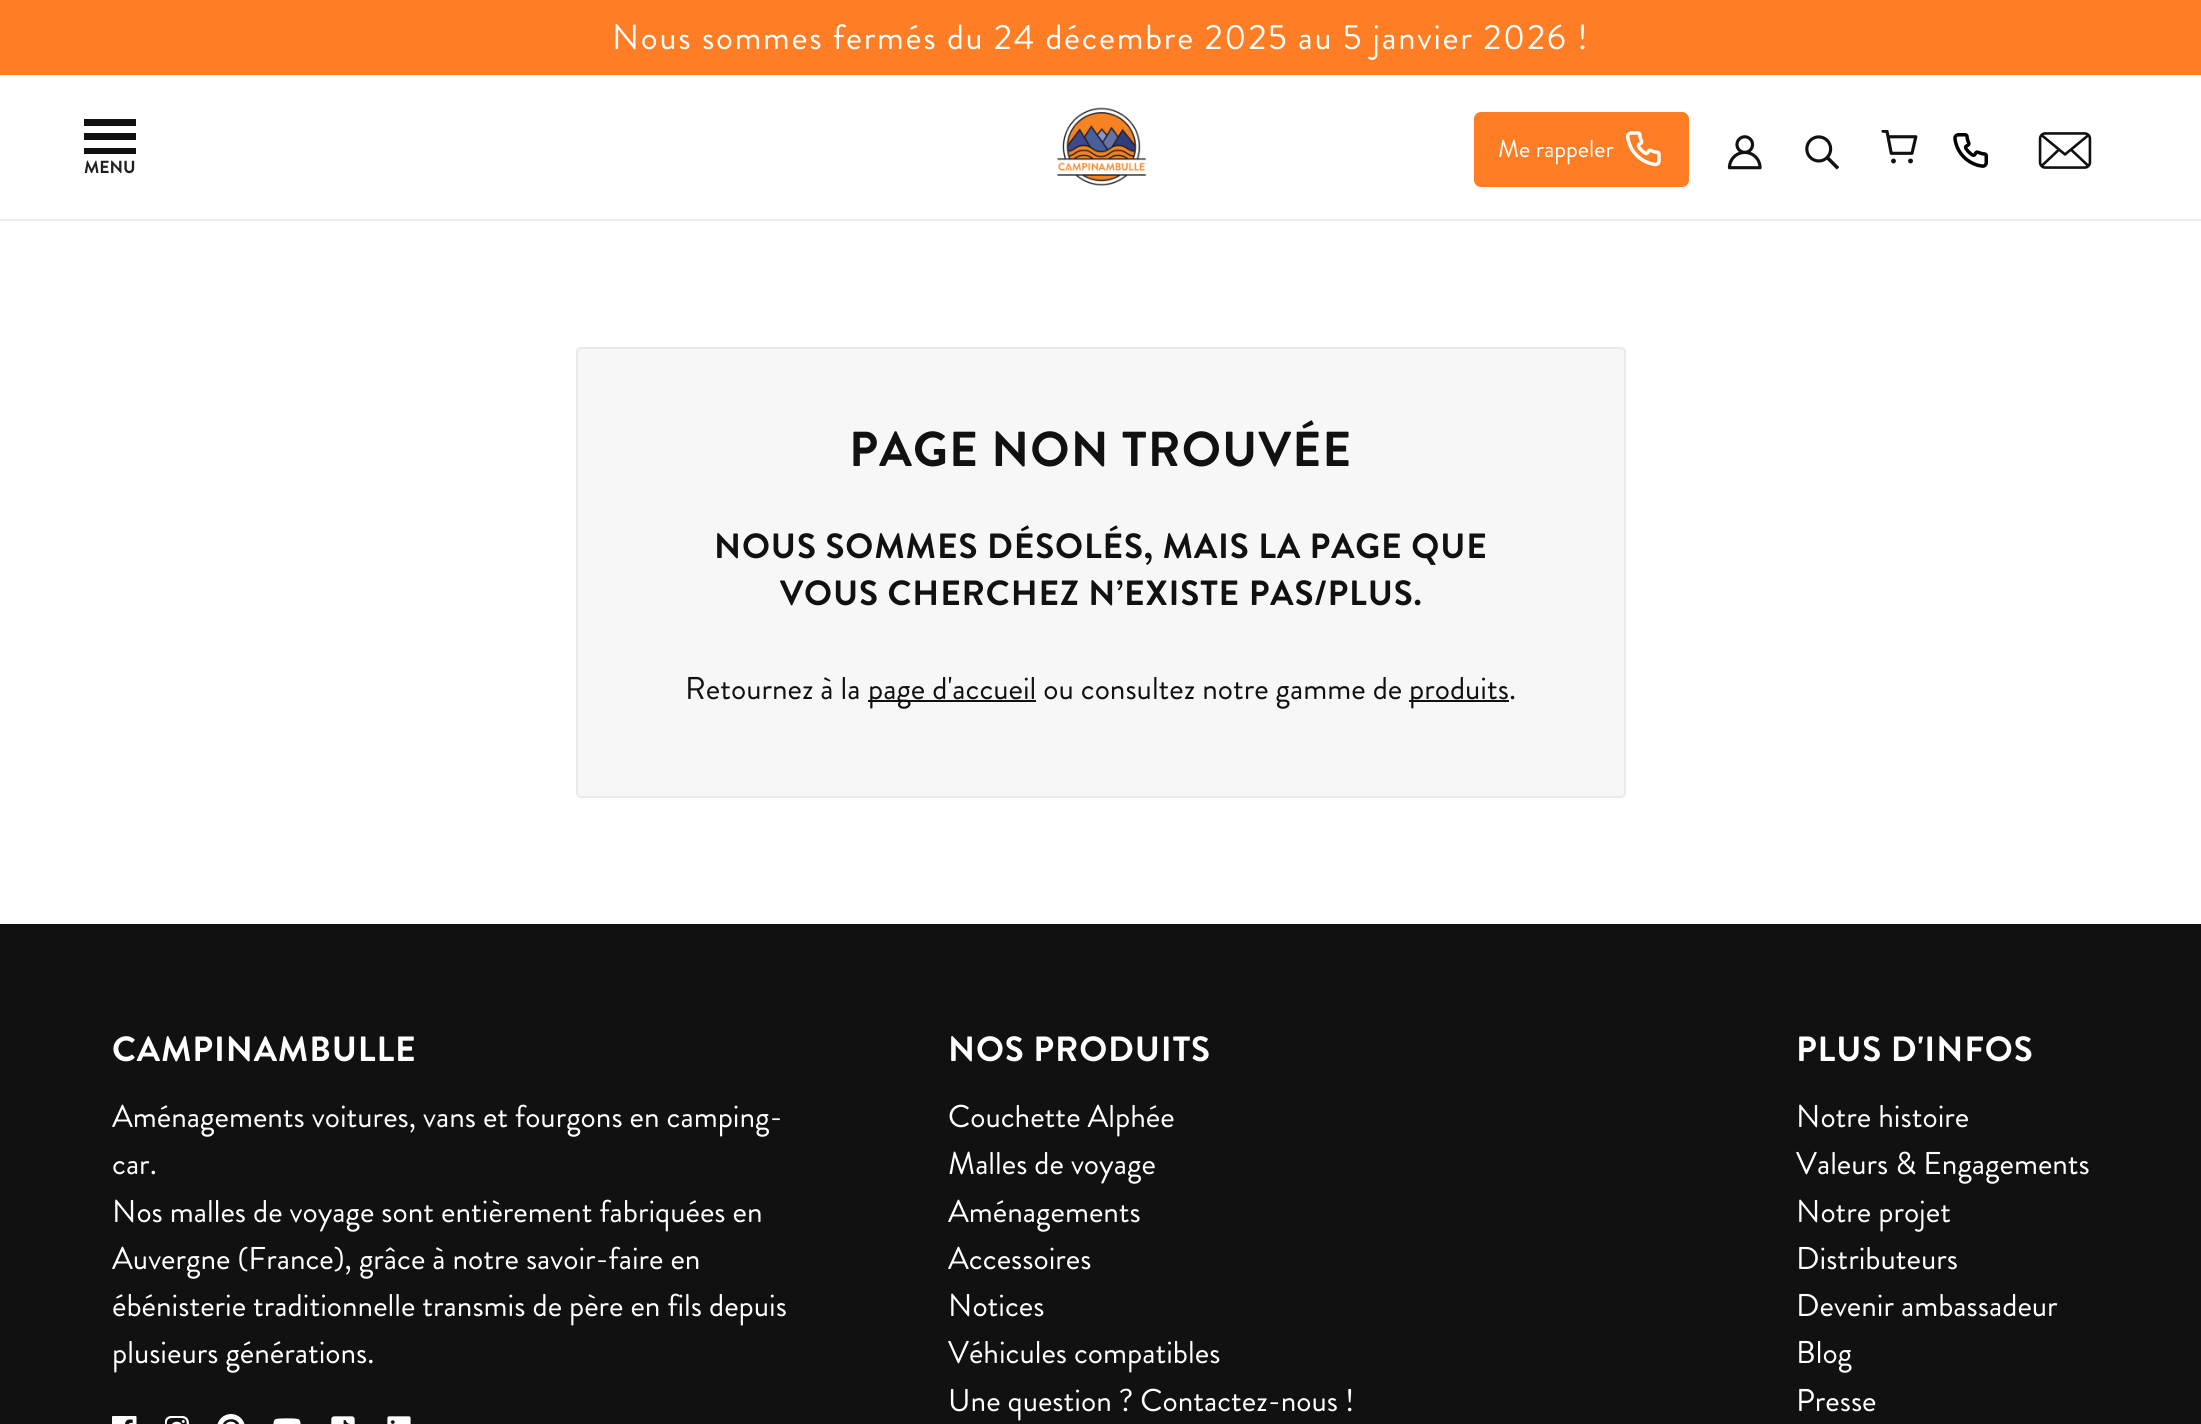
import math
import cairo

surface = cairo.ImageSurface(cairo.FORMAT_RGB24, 2201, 1424)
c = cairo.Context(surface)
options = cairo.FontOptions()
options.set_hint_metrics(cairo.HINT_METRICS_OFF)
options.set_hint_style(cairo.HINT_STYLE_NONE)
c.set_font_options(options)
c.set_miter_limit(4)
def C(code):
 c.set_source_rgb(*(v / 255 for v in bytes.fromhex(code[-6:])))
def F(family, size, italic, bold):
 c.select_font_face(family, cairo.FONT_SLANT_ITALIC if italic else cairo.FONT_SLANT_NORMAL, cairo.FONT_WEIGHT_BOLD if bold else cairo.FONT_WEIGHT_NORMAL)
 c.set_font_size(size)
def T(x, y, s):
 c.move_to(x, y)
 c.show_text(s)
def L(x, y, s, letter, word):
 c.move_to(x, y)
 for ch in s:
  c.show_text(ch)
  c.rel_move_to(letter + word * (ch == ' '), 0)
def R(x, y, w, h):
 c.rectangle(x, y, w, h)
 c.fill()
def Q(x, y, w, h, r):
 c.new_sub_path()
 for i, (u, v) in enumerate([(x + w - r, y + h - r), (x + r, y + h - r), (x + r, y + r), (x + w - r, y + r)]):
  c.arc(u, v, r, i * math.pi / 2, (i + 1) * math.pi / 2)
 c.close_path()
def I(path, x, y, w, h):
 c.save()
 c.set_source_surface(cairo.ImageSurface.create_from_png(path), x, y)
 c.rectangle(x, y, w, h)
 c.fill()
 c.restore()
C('ffffff')
c.paint()
C('ff7d24')
R(0,0,2201,75)
F('Brandon Grotesque',35,0,0)
C('ffffff')
L(612,49,'Nous sommes fermés du 24 décembre 2025 au 5 janvier 2026 !',1.75,0)
C('eeeeee')
R(0,219,2201,2)
I('1.png',1057,107,90,79)
C('ff7d24')
Q(1476,114,211,71,5)
c.fill_preserve()
c.set_line_width(4)
c.stroke()
F('Brandon Grotesque',24.5,0,0)
C('ffffff')
T(1498,157,'Me rappeler')
I('2.png',1626,131,35,36)
I('3.png',1727,135,35,35)
I('4.png',1805,135,34,35)
I('5.png',1881,130,37,34)
I('6.png',1953,133,35,35)
I('7.png',2038,132,54,37)
C('111111')
R(84,148,52,6)
R(84,119,52,7)
R(84,133,52,7)
F('Brandon Grotesque',17.5,0,1)
C('221f20')
T(84,173,'MENU')
C('f7f7f7')
Q(577,348,1048,449,4)
c.fill_preserve()
C('eaeaea')
c.set_line_width(2)
c.stroke()
F('Brandon Grotesque',49,0,1)
C('111111')
L(849,466,'PAGE NON TROUVÉE',1.25,0)
F('Brandon Grotesque',35,0,1)
L(714,558,'NOUS SOMMES DÉSOLÉS, MAIS LA PAGE QUE',.9,0)
L(780,605,'VOUS CHERCHEZ N’EXISTE PAS/PLUS.',.9,0)
F('Brandon Grotesque',31.5,0,0)
T(685,699,'Retournez à la')
R(868,700,168,2)
T(868,699,'page d\'accueil ou consultez notre gamme de')
R(1409,700,100,2)
T(1409,699,'produits.')
R(0,924,2201,500)
F('Brandon Grotesque',35,0,1)
C('ffffff')
L(112,1061,'CAMPINAMBULLE',.9,0)
F('Brandon Grotesque',31.5,0,0)
T(112,1127,'Aménagements voitures, vans et fourgons en camping-')
T(112,1174,'car.')
T(112,1222,'Nos malles de voyage sont entièrement fabriquées en')
T(112,1269,'Auvergne (France), grâce à notre savoir-faire en')
T(112,1316,'ébénisterie traditionnelle transmis de père en fils depuis')
T(112,1363,'plusieurs générations.')
I('8.png',112,1416,25,8)
I('9.png',165,1416,24,8)
I('10.png',217,1414,28,10)
I('11.png',273,1418,28,6)
I('12.png',331,1416,24,8)
I('13.png',387,1416,24,8)
F('Brandon Grotesque',35,0,1)
L(948,1061,'NOS PRODUITS',.9,0)
F('Brandon Grotesque',31.5,0,0)
T(948,1127,'Couchette Alphée')
T(948,1174,'Malles de voyage')
T(948,1222,'Aménagements')
T(948,1269,'Accessoires')
T(948,1316,'Notices')
T(948,1363,'Véhicules compatibles')
T(948,1411,'Une question ? Contactez-nous !')
F('Brandon Grotesque',35,0,1)
L(1796,1061,'PLUS D\'INFOS',.9,0)
F('Brandon Grotesque',31.5,0,0)
T(1796,1127,'Notre histoire')
T(1796,1174,'Valeurs & Engagements')
T(1796,1222,'Notre projet')
T(1796,1269,'Distributeurs')
T(1796,1316,'Devenir ambassadeur')
T(1796,1363,'Blog')
T(1796,1411,'Presse')
surface.write_to_png('o.png')
